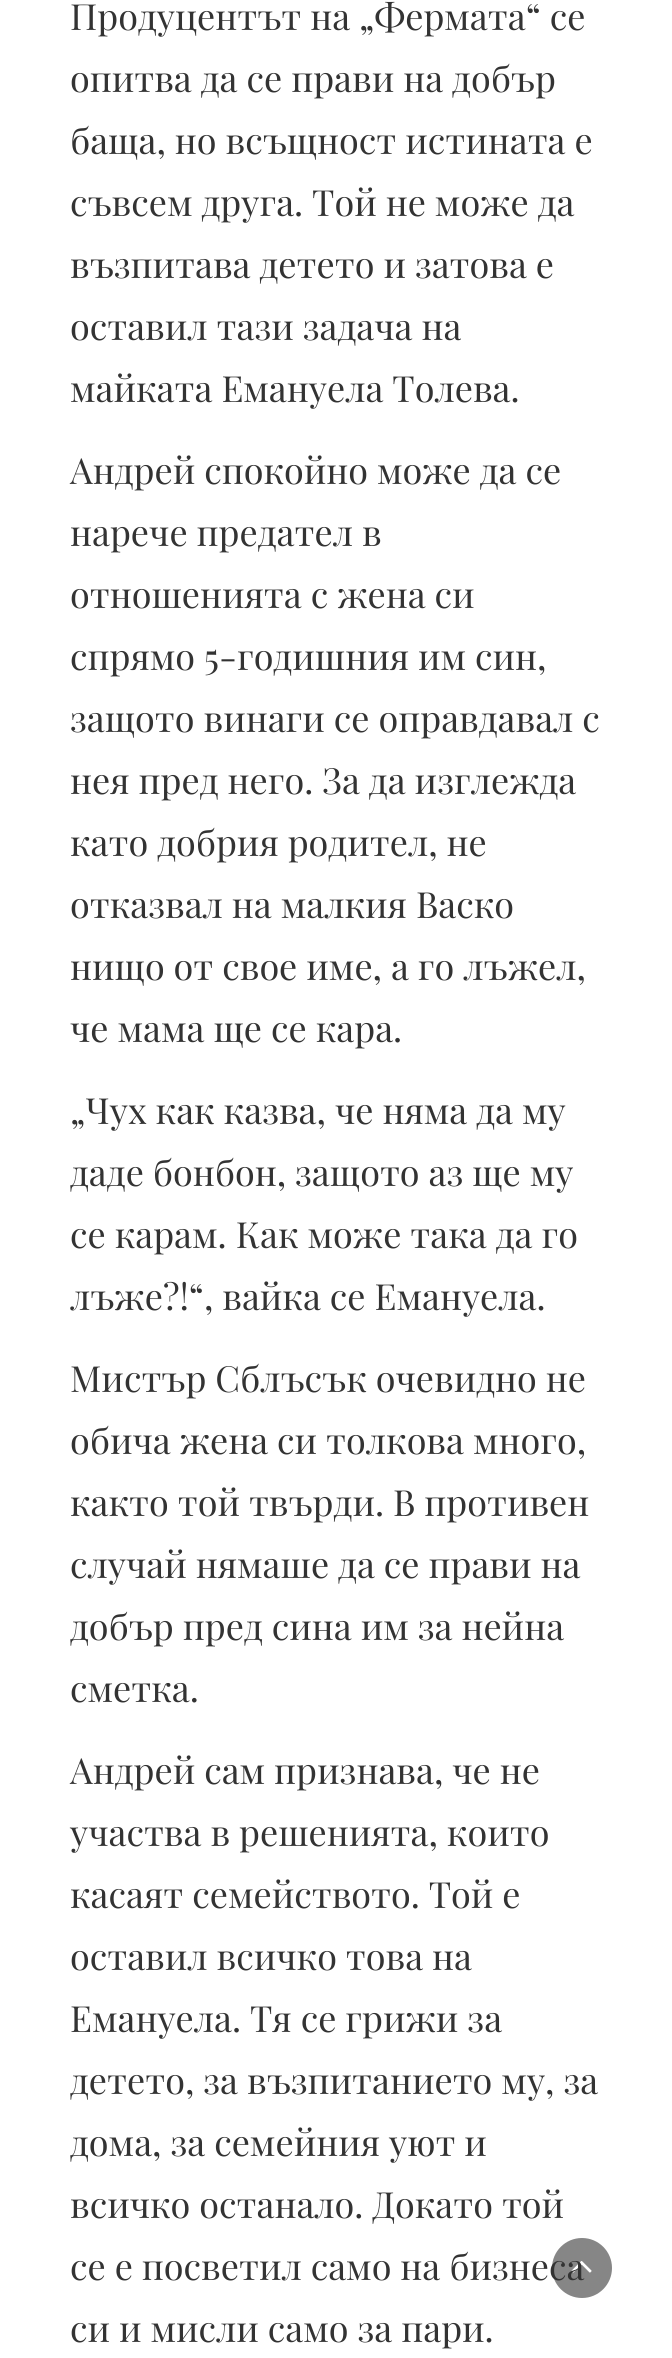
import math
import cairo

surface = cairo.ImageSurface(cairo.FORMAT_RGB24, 672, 2358)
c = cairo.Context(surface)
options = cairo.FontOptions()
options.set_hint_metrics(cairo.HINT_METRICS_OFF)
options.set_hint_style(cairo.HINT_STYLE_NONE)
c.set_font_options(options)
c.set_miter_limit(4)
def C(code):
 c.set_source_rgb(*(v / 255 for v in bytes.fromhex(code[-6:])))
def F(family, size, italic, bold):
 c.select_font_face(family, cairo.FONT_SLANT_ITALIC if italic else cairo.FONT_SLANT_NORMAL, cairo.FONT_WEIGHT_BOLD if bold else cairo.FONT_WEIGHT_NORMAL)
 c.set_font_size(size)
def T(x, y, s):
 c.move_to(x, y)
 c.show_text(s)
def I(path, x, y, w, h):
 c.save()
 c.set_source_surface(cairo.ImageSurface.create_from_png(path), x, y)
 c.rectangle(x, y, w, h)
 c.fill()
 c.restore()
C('ffffff')
c.paint()
F('Playfair Display',36,0,0)
C('333333')
T(70,30,'Продуцентът на „Фермата“ се')
T(70,92,'опитва да се прави на добър')
T(70,154,'баща, но всъщност истината е')
T(70,216,'съвсем друга. Той не може да')
T(70,278,'възпитава детето и затова е')
T(70,340,'оставил тази задача на')
T(70,402,'майката Емануела Толева.')
T(70,484,'Андрей спокойно може да се')
T(70,546,'нарече предател в')
T(70,608,'отношенията с жена си')
T(70,670,'спрямо 5-годишния им син,')
T(70,732,'защото винаги се оправдавал с')
T(70,794,'нея пред него. За да изглежда')
T(70,856,'като добрия родител, не')
T(70,918,'отказвал на малкия Васко')
T(70,980,'нищо от свое име, а го лъжел,')
T(70,1042,'че мама ще се кара.')
T(70,1124,'„Чух как казва, че няма да му')
T(70,1186,'даде бонбон, защото аз ще му')
T(70,1248,'се карам. Как може така да го')
T(70,1310,'лъже?!“, вайка се Емануела.')
T(70,1392,'Мистър Сблъсък очевидно не')
T(70,1454,'обича жена си толкова много,')
T(70,1516,'както той твърди. В противен')
T(70,1578,'случай нямаше да се прави на')
T(70,1640,'добър пред сина им за нейна')
T(70,1702,'сметка.')
T(70,1784,'Андрей сам признава, че не')
T(70,1846,'участва в решенията, които')
T(70,1908,'касаят семейството. Той е')
T(70,1970,'оставил всичко това на')
T(70,2032,'Емануела. Тя се грижи за')
T(70,2094,'детето, за възпитанието му, за')
T(70,2156,'дома, за семейния уют и')
T(70,2218,'всичко останало. Докато той')
C('868686')
c.new_path()
c.arc(582,2268,30,0,2 * math.pi)
c.fill()
I('1.png',571,2261,21,12)
C('333333')
T(70,2280,'се е посветил само на бизнеса')
T(70,2342,'си и мисли само за пари.')
surface.write_to_png('o.png')
